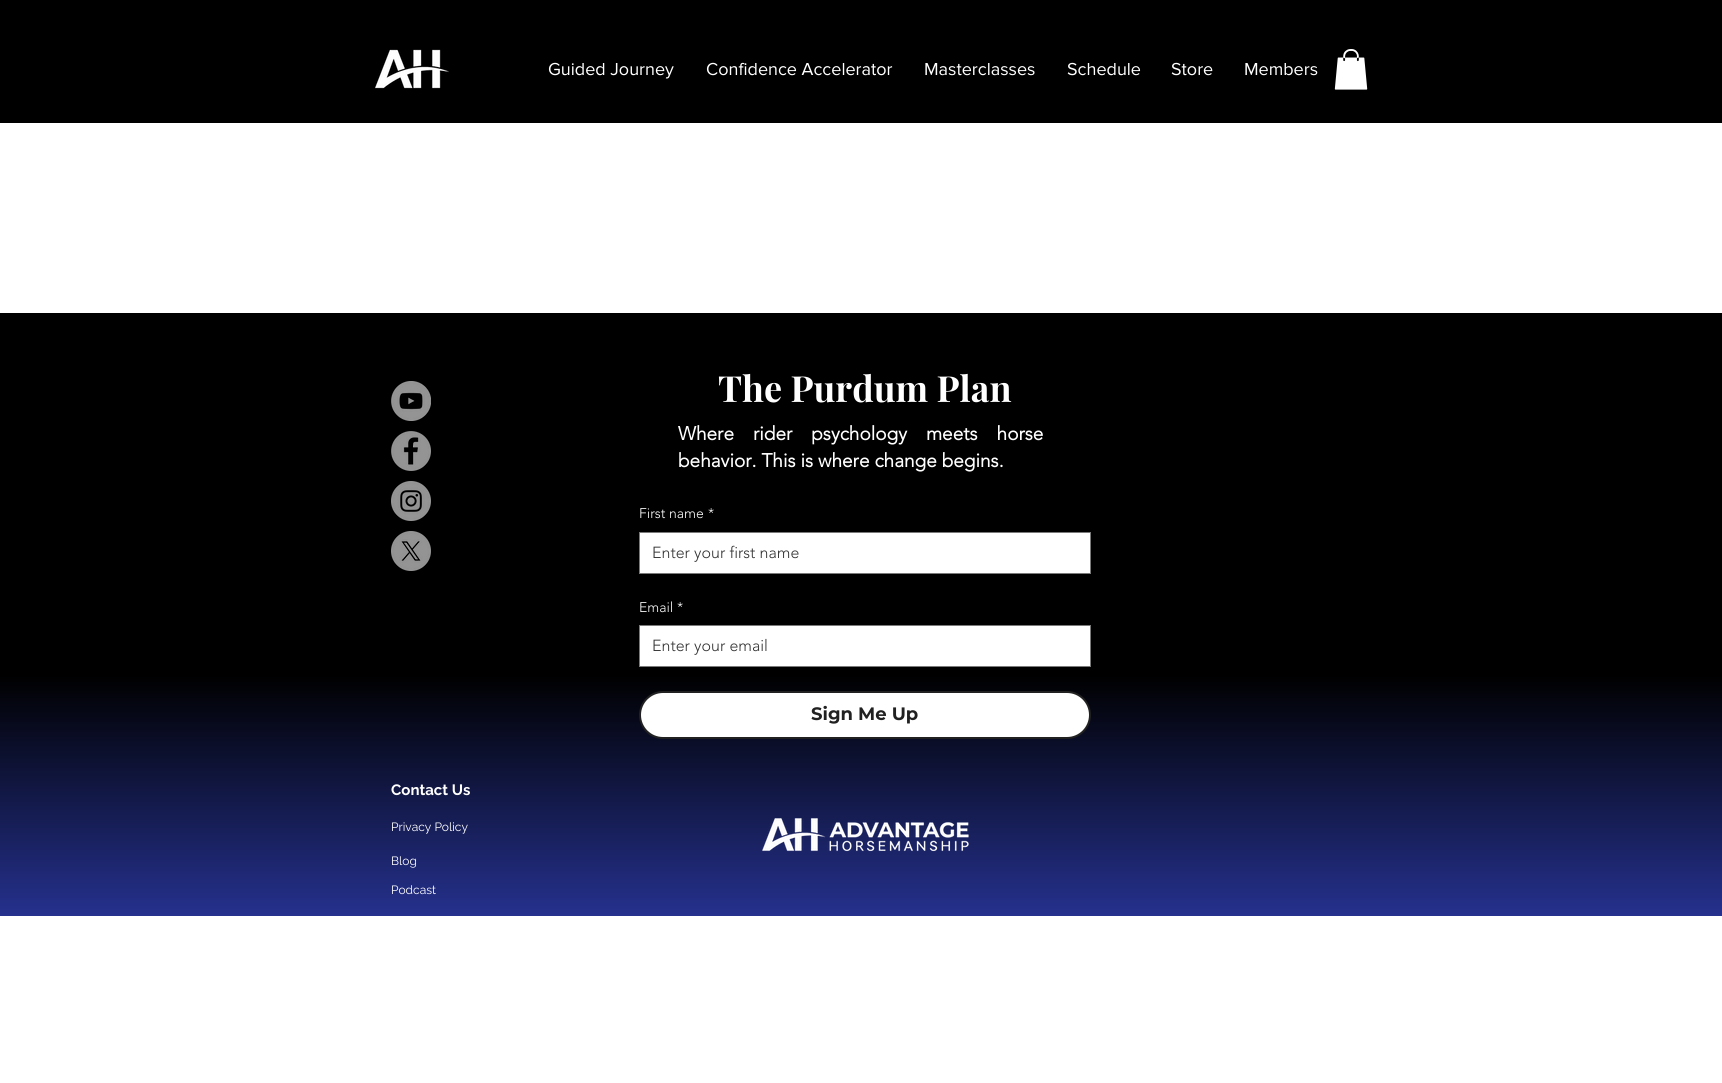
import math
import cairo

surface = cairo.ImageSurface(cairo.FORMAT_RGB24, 1722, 1083)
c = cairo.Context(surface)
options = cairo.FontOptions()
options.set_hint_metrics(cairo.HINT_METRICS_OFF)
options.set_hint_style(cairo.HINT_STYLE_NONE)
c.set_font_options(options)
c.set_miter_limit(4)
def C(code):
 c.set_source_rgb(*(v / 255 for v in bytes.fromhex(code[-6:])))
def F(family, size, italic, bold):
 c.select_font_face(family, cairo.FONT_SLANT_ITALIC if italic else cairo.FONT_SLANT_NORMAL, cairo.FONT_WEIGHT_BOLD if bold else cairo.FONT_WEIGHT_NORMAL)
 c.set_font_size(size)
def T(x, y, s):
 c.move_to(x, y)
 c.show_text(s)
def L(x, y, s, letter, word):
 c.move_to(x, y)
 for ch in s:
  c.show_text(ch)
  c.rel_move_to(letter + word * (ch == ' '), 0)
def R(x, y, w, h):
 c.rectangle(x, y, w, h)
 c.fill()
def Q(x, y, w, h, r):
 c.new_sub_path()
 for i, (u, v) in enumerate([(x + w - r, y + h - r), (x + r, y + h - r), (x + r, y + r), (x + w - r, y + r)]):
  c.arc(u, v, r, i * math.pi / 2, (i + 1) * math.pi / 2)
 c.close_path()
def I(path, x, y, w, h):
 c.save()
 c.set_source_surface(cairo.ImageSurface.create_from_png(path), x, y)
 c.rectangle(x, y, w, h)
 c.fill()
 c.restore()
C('ffffff')
c.paint()
C('000000')
R(0,0,1722,123)
I('1.png',375,49,74,40)
F('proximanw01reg',18,0,0)
C('ffffff')
T(548,75,'Guided Journey')
T(706,75,'Confidence Accelerator')
T(924,75,'Masterclasses')
T(1067,75,'Schedule')
T(1171,75,'Store')
T(1244,75,'Members')
I('2.png',1334,49,34,41)
gradient = cairo.LinearGradient(861,916,861,313)
gradient.add_color_stop_rgba(0,0.145,0.192,0.553,1)
gradient.add_color_stop_rgba(.4,0,0,0,1)
c.set_source(gradient)
R(0,313,1722,603)
I('3.png',391,381,40,40)
I('4.png',391,431,40,40)
I('5.png',391,481,40,40)
I('6.png',391,531,40,40)
F('Playfair Display',36,0,1)
C('ffffff')
T(718,402,'The Purdum Plan')
F('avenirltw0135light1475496',19,0,1)
L(678,440,'Where rider psychology meets horse',0,14)
T(678,467,'behavior. This is where change begins.')
F('avenirltw0135light1475496 Light',14,0,0)
T(639,518,'First name')
T(708,518,'*')
c.rectangle(639.5,532.5,451,41)
c.fill_preserve()
C('7a7a7a')
c.set_line_width(1)
c.stroke()
F('avenirltw0135light1475496 Light',16,0,0)
C('333333')
T(652,558,'Enter your first name')
F('avenirltw0135light1475496 Light',14,0,0)
C('ffffff')
T(639,612,'Email')
T(677,612,'*')
c.rectangle(639.5,625.5,451,41)
c.fill_preserve()
C('7a7a7a')
c.stroke()
F('avenirltw0135light1475496 Light',16,0,0)
C('333333')
T(652,651,'Enter your email')
C('ffffff')
Q(640,692,450,46,23)
c.fill_preserve()
C('212121')
c.set_line_width(2)
c.stroke()
F('Montserrat',18,0,1)
T(811,720,'Sign Me Up')
F('Raleway',15,0,1)
C('ffffff')
T(391,795,'Contact Us')
F('Raleway',12,0,0)
T(391,831,'Privacy Policy')
I('7.png',762,818,207,34)
T(391,865,'Blog')
T(391,894,'Podcast')
surface.write_to_png('o.png')
